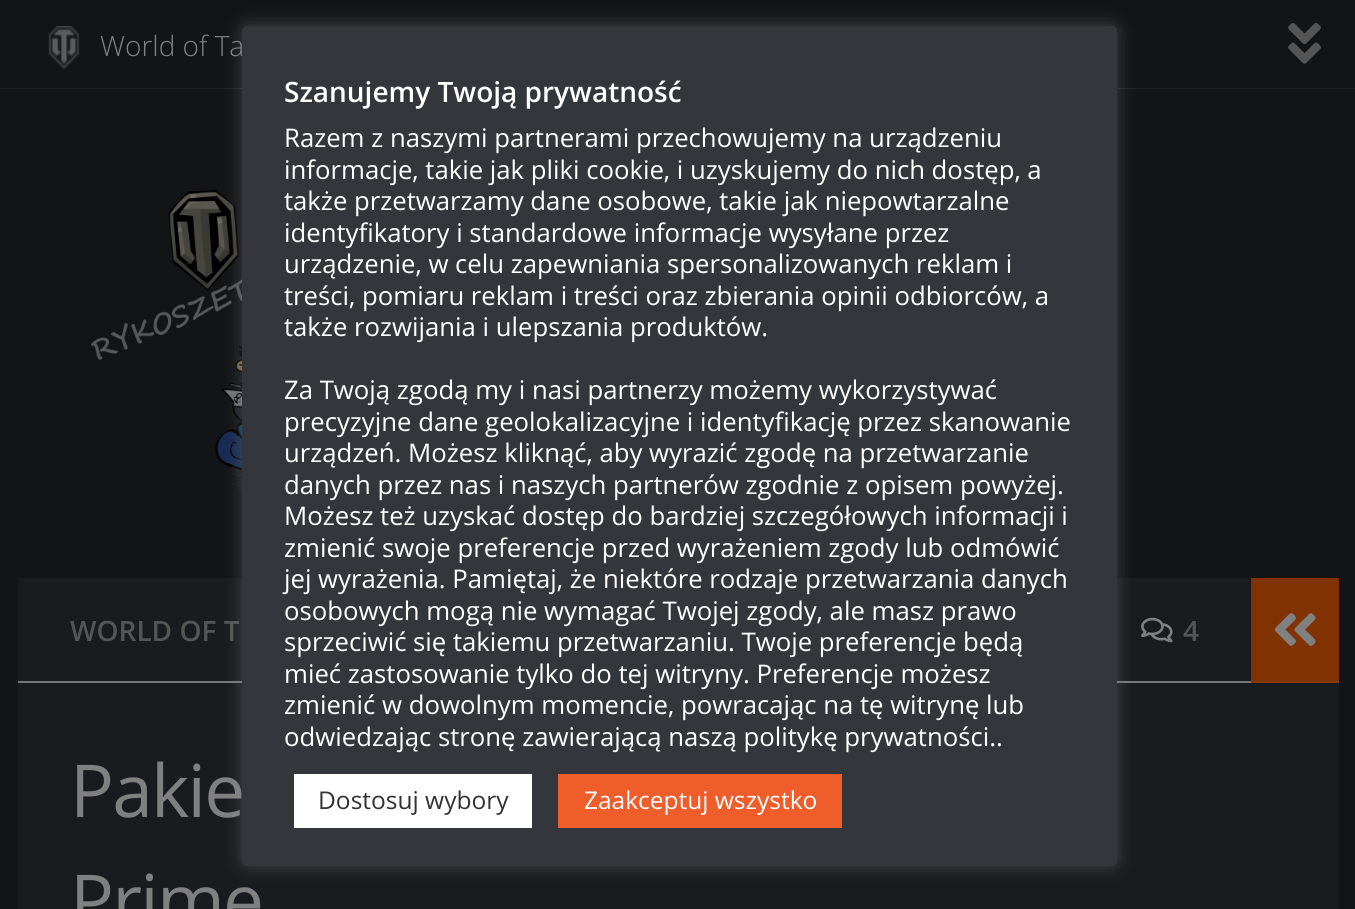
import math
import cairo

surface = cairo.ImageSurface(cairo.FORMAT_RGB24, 1355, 909)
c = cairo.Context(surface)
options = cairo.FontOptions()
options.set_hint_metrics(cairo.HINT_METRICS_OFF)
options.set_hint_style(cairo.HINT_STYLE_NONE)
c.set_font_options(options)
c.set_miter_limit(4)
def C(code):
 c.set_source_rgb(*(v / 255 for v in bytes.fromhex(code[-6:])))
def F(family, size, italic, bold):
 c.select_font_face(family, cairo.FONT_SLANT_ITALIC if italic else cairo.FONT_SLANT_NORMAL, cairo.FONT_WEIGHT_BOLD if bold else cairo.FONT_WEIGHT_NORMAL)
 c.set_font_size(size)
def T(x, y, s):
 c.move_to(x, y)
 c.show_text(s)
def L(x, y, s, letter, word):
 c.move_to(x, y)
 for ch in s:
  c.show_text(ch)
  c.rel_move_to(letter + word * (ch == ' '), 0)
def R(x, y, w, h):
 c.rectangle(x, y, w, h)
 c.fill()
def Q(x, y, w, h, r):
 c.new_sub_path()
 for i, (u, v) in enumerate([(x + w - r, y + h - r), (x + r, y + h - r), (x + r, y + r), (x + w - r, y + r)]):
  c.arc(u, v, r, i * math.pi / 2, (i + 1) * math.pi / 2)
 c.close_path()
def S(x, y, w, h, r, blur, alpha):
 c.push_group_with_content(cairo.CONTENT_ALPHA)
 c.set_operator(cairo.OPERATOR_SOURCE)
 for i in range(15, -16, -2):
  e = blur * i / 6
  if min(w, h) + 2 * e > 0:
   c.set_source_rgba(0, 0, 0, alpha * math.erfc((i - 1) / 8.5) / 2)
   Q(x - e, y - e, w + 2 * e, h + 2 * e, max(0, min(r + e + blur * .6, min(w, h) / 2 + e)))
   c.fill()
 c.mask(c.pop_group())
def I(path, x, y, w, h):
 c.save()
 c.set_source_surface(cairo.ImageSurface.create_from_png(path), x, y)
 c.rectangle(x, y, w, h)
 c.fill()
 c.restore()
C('131416')
c.paint()
C('242426')
R(0,88,1355,1)
I('1.png',48,26,32,44)
F('Open Sans Light',28,0,0)
C('808080')
T(100,56,'World of Ta')
I('2.png',1288,23,33,41)
I('3.png',91,190,151,302)
C('1a1b1e')
R(18,578,1321,331)
C('777777')
R(18,681,1233,2)
F('Open Sans SemiBold',28,0,0)
C('555555')
T(70,641,'WORLD OF T')
I('4.png',1141,617,32,26)
T(1183,641,'4')
F('Open Sans',73,0,0)
C('808080')
L(70,817,'Pakie',-1.75,0)
L(70,927,'Prime',-1.75,0)
C('803300')
R(1251,578,88,103)
C('803b0d')
R(1251,681,88,2)
I('5.png',1274,613,42,33)
C('acabab')
S(242,25,875,840,5,9,.3)
C('33363b')
Q(242,26,875,840,5)
c.fill()
F('Open Sans SemiBold',28,0,0)
C('ffffff')
T(284,102,'Szanujemy Twoją prywatność')
F('Open Sans',25.7,0,0)
T(284,147,'Razem z naszymi partnerami przechowujemy na urządzeniu')
T(284,179,'informacje, takie jak pliki cookie, i uzyskujemy do nich dostęp, a')
T(284,210,'także przetwarzamy dane osobowe, takie jak niepowtarzalne')
T(284,242,'identyfikatory i standardowe informacje wysyłane przez')
T(284,273,'urządzenie, w celu zapewniania spersonalizowanych reklam i')
T(284,305,'treści, pomiaru reklam i treści oraz zbierania opinii odbiorców, a')
T(284,336,'także rozwijania i ulepszania produktów.')
T(284,399,'Za Twoją zgodą my i nasi partnerzy możemy wykorzystywać')
T(284,431,'precyzyjne dane geolokalizacyjne i identyfikację przez skanowanie')
T(284,462,'urządzeń. Możesz kliknąć, aby wyrazić zgodę na przetwarzanie')
T(284,494,'danych przez nas i naszych partnerów zgodnie z opisem powyżej.')
T(284,525,'Możesz też uzyskać dostęp do bardziej szczegółowych informacji i')
T(284,557,'zmienić swoje preferencje przed wyrażeniem zgody lub odmówić')
T(284,588,'jej wyrażenia. Pamiętaj, że niektóre rodzaje przetwarzania danych')
T(284,620,'osobowych mogą nie wymagać Twojej zgody, ale masz prawo')
T(284,651,'sprzeciwić się takiemu przetwarzaniu. Twoje preferencje będą')
T(284,683,'mieć zastosowanie tylko do tej witryny. Preferencje możesz')
T(284,714,'zmienić w dowolnym momencie, powracając na tę witrynę lub')
T(284,746,'odwiedzając stronę zawierającą naszą politykę prywatności..')
R(294,774,238,54)
F('Open Sans',24.5,0,0)
C('333333')
T(318,809,'Dostosuj wybory')
C('ee5d2a')
R(558,774,284,54)
C('ffffff')
T(584,809,'Zaakceptuj wszystko')
surface.write_to_png('o.png')
